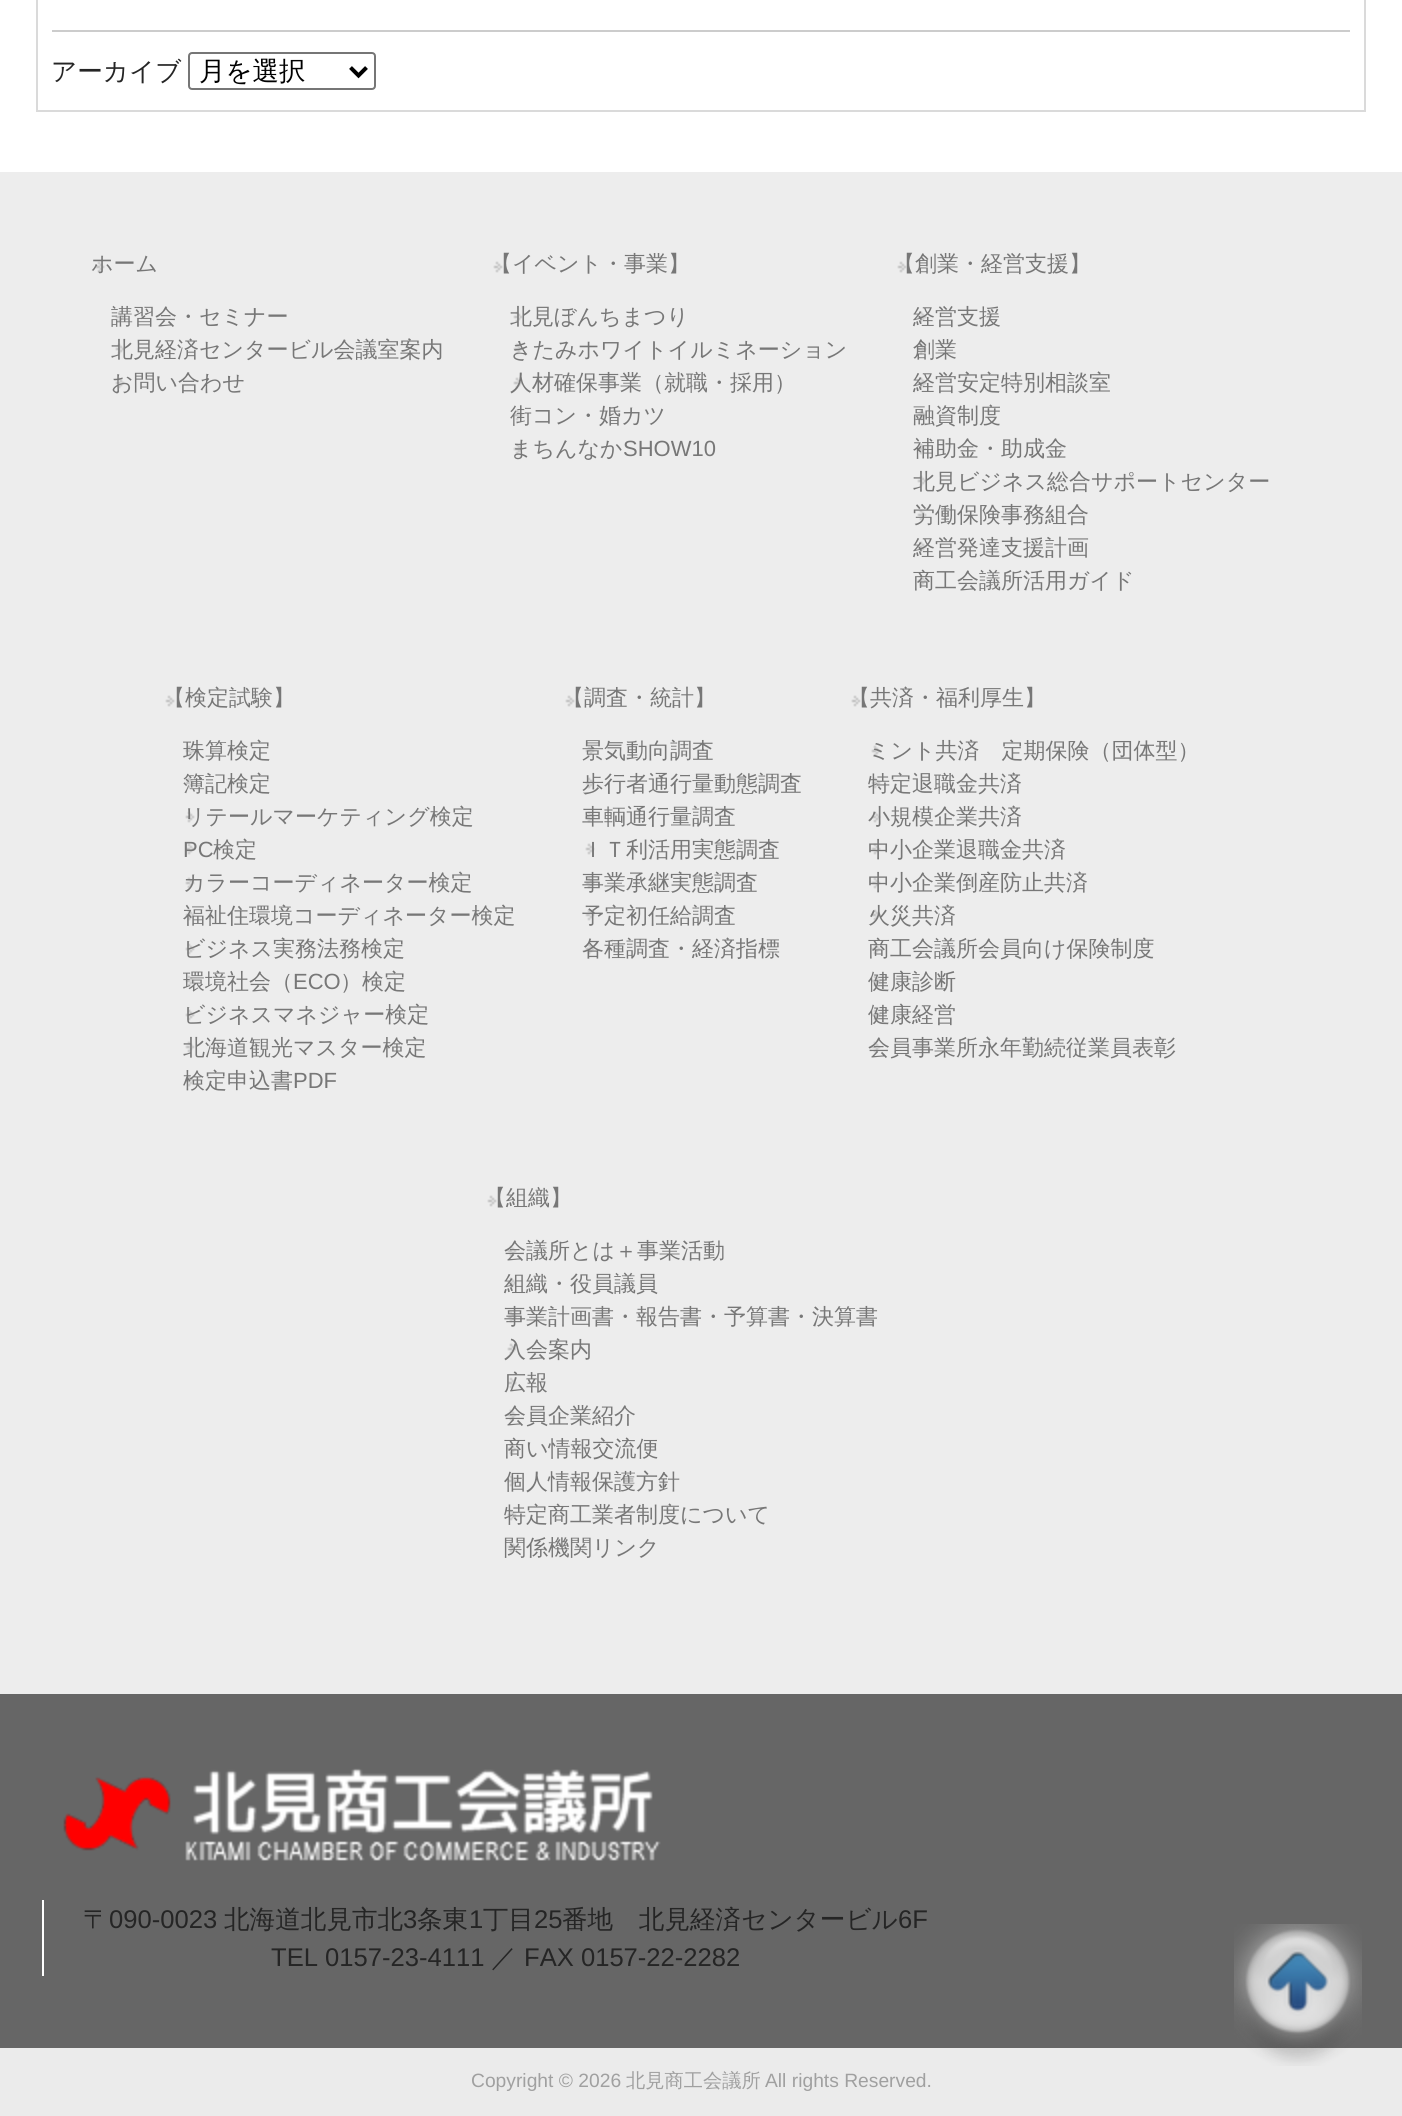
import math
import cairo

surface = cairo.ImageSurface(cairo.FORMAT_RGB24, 1402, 2116)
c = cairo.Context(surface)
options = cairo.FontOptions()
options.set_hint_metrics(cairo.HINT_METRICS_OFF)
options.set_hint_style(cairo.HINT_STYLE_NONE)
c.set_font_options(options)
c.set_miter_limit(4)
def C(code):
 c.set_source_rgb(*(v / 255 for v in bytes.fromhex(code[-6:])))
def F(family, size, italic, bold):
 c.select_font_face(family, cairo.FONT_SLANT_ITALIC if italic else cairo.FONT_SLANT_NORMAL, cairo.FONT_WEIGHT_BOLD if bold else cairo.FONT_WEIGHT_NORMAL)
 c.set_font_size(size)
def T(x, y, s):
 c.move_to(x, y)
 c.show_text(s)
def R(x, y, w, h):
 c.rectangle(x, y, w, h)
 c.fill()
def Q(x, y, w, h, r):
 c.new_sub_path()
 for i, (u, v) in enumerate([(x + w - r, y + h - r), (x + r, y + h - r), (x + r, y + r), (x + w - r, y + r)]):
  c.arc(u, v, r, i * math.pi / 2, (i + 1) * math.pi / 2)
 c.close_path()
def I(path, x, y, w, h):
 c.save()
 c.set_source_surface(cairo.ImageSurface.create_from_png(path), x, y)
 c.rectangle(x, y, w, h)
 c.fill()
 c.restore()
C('ffffff')
c.paint()
c.rectangle(37,-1,1328,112)
C('dadada')
c.stroke()
C('cccccc')
R(52,30,1298,2)
F('WenQuanYi Zen Hei Medium',25.6,0,0)
C('252525')
T(51,80,'アーカイブ')
Q(189,53,186,36,3)
C('767676')
c.stroke()
c.new_path()
c.move_to(350.5,67.5)
c.line_to(358.5,75.5)
c.line_to(366.5,67.5)
C('000000')
c.set_line_width(4)
c.stroke()
F('WenQuanYi Zen Hei Medium',26.5,0,0)
T(199,80,'月を選択')
C('ededed')
R(0,172,1402,1522)
I('1.png',95,261,10,12)
F('WenQuanYi Zen Hei Medium',22,0,0)
C('777777')
T(91,271,'ホーム')
I('1.png',115,311,10,12)
T(111,324,'講習会・セミナー')
I('1.png',115,343,10,12)
T(111,357,'北見経済センタービル会議室案内')
I('1.png',115,377,10,12)
T(111,390,'お問い合わせ')
I('1.png',493,261,10,12)
T(490,271,'【イベント・事業】')
I('1.png',513,311,10,12)
T(510,324,'北見ぼんちまつり')
I('1.png',513,343,10,12)
T(510,357,'きたみホワイトイルミネーション')
I('1.png',513,377,10,12)
T(510,390,'人材確保事業（就職・採用）')
I('1.png',513,409,10,12)
T(510,423,'街コン・婚カツ')
I('1.png',513,443,10,12)
T(510,456,'まちんなか')
F('Liberation Sans',22,0,0)
T(623,456,'SHOW10')
I('1.png',897,261,10,12)
F('WenQuanYi Zen Hei Medium',22,0,0)
T(893,271,'【創業・経営支援】')
I('1.png',917,311,10,12)
T(913,324,'経営支援')
I('1.png',917,343,10,12)
T(913,357,'創業')
I('1.png',917,377,10,12)
T(913,390,'経営安定特別相談室')
I('1.png',917,409,10,12)
T(913,423,'融資制度')
I('1.png',917,443,10,12)
T(913,456,'補助金・助成金')
I('1.png',917,475,10,12)
T(913,489,'北見ビジネス総合サポートセンター')
I('1.png',917,509,10,12)
T(913,522,'労働保険事務組合')
I('1.png',917,541,10,12)
T(913,555,'経営発達支援計画')
I('1.png',917,575,10,12)
T(913,588,'商工会議所活用ガイド')
I('1.png',165,695,10,12)
T(163,705,'【検定試験】')
I('1.png',185,745,10,12)
T(183,758,'珠算検定')
I('1.png',185,777,10,12)
T(183,791,'簿記検定')
I('1.png',185,811,10,12)
T(183,824,'リテールマーケティング検定')
I('1.png',185,843,10,12)
F('Liberation Sans',22,0,0)
T(183,857,'PC')
F('WenQuanYi Zen Hei Medium',22,0,0)
T(213,857,'検定')
I('1.png',185,877,10,12)
T(183,890,'カラーコーディネーター検定')
I('1.png',185,909,10,12)
T(183,923,'福祉住環境コーディネーター検定')
I('1.png',185,943,10,12)
T(183,956,'ビジネス実務法務検定')
I('1.png',185,975,10,12)
T(183,989,'環境社会（')
F('Liberation Sans',22,0,0)
T(293,989,'ECO')
F('WenQuanYi Zen Hei Medium',22,0,0)
T(340,989,'）検定')
I('1.png',185,1009,10,12)
T(183,1022,'ビジネスマネジャー検定')
I('1.png',185,1041,10,12)
T(183,1055,'北海道観光マスター検定')
I('1.png',185,1075,10,12)
T(183,1088,'検定申込書')
F('Liberation Sans',22,0,0)
T(293,1088,'PDF')
I('1.png',565,695,10,12)
F('WenQuanYi Zen Hei Medium',22,0,0)
T(562,705,'【調査・統計】')
I('1.png',585,745,10,12)
T(582,758,'景気動向調査')
I('1.png',585,777,10,12)
T(582,791,'歩行者通行量動態調査')
I('1.png',585,811,10,12)
T(582,824,'車輌通行量調査')
I('1.png',585,843,10,12)
T(582,857,'ＩＴ利活用実態調査')
I('1.png',585,877,10,12)
T(582,890,'事業承継実態調査')
I('1.png',585,909,10,12)
T(582,923,'予定初任給調査')
I('1.png',585,943,10,12)
T(582,956,'各種調査・経済指標')
I('1.png',851,695,10,12)
T(848,705,'【共済・福利厚生】')
I('1.png',871,745,10,12)
T(868,758,'ミント共済　定期保険（団体型）')
I('1.png',871,777,10,12)
T(868,791,'特定退職金共済')
I('1.png',871,811,10,12)
T(868,824,'小規模企業共済')
I('1.png',871,843,10,12)
T(868,857,'中小企業退職金共済')
I('1.png',871,877,10,12)
T(868,890,'中小企業倒産防止共済')
I('1.png',871,909,10,12)
T(868,923,'火災共済')
I('1.png',871,943,10,12)
T(868,956,'商工会議所会員向け保険制度')
I('1.png',871,975,10,12)
T(868,989,'健康診断')
I('1.png',871,1009,10,12)
T(868,1022,'健康経営')
I('1.png',871,1041,10,12)
T(868,1055,'会員事業所永年勤続従業員表彰')
I('1.png',487,1195,10,12)
T(484,1205,'【組織】')
I('1.png',507,1245,10,12)
T(504,1258,'会議所とは＋事業活動')
I('1.png',507,1277,10,12)
T(504,1291,'組織・役員議員')
I('1.png',507,1311,10,12)
T(504,1324,'事業計画書・報告書・予算書・決算書')
I('1.png',507,1343,10,12)
T(504,1357,'入会案内')
I('1.png',507,1377,10,12)
T(504,1390,'広報')
I('1.png',507,1409,10,12)
T(504,1423,'会員企業紹介')
I('1.png',507,1443,10,12)
T(504,1456,'商い情報交流便')
I('1.png',507,1475,10,12)
T(504,1489,'個人情報保護方針')
I('1.png',507,1509,10,12)
T(504,1522,'特定商工業者制度について')
I('1.png',507,1541,10,12)
T(504,1555,'関係機関リンク')
C('666666')
R(0,1694,1402,354)
I('2.png',63,1768,598,93)
C('ffffff')
R(42,1900,2,76)
F('WenQuanYi Zen Hei Medium',25.6,0,0)
C('252525')
T(83,1928,'〒')
F('Liberation Sans',25.6,0,0)
T(109,1928,'090-0023')
F('WenQuanYi Zen Hei Medium',25.6,0,0)
T(224,1928,'北海道北見市北')
F('Liberation Sans',25.6,0,0)
T(403,1928,'3')
F('WenQuanYi Zen Hei Medium',25.6,0,0)
T(417,1928,'条東')
F('Liberation Sans',25.6,0,0)
T(469,1928,'1')
F('WenQuanYi Zen Hei Medium',25.6,0,0)
T(483,1928,'丁目')
F('Liberation Sans',25.6,0,0)
T(534,1928,'25')
F('WenQuanYi Zen Hei Medium',25.6,0,0)
T(562,1928,'番地　北見経済センタービル')
F('Liberation Sans',25.6,0,0)
T(898,1928,'6F')
T(271,1966,'TEL 0157-23-4111')
F('WenQuanYi Zen Hei Medium',25.6,0,0)
T(491,1966,'／')
F('Liberation Sans',25.6,0,0)
T(524,1966,'FAX 0157-22-2282')
C('ebebeb')
R(0,2048,1402,68)
F('Liberation Sans',19.25,0,0)
C('a0a0a0')
T(471,2087,'Copyright © 2026')
F('WenQuanYi Zen Hei Medium',19.25,0,0)
T(626,2087,'北見商工会議所')
F('Liberation Sans',19.25,0,0)
T(765,2087,'All rights Reserved.')
I('3.png',1234,1924,128,142)
surface.write_to_png('o.png')
